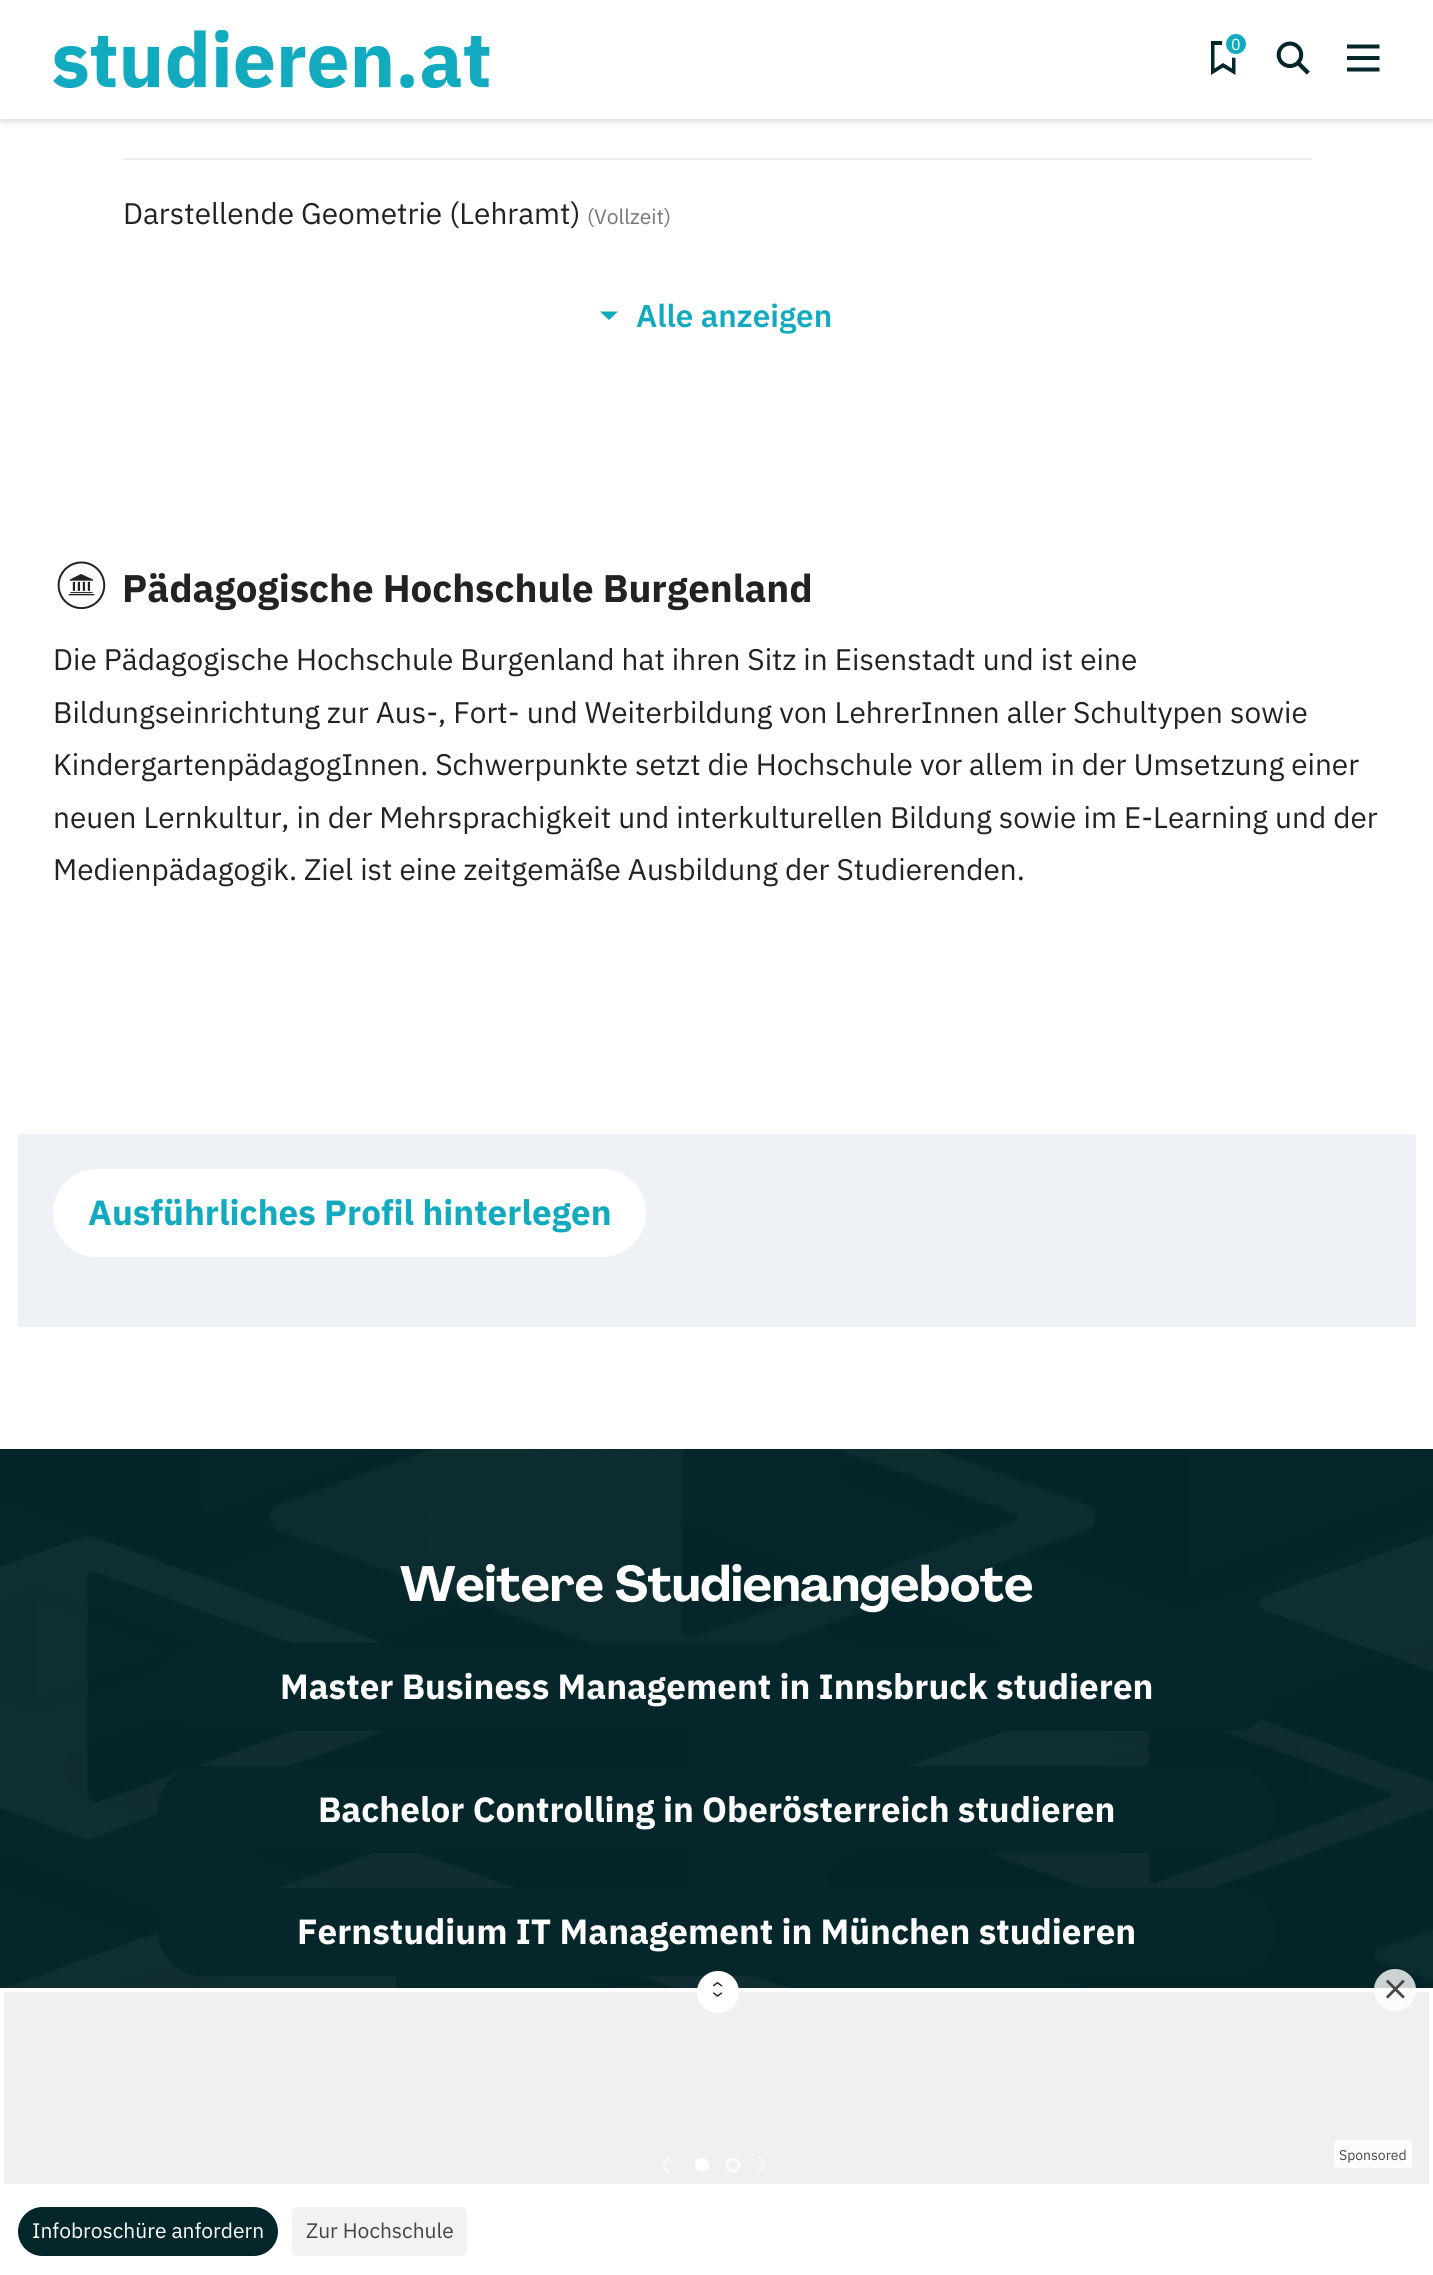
import math
import cairo

surface = cairo.ImageSurface(cairo.FORMAT_RGB24, 1433, 2275)
c = cairo.Context(surface)
options = cairo.FontOptions()
options.set_hint_metrics(cairo.HINT_METRICS_OFF)
options.set_hint_style(cairo.HINT_STYLE_NONE)
c.set_font_options(options)
c.set_miter_limit(4)
def C(code):
 c.set_source_rgb(*(v / 255 for v in bytes.fromhex(code[-6:])))
def F(family, size, italic, bold):
 c.select_font_face(family, cairo.FONT_SLANT_ITALIC if italic else cairo.FONT_SLANT_NORMAL, cairo.FONT_WEIGHT_BOLD if bold else cairo.FONT_WEIGHT_NORMAL)
 c.set_font_size(size)
def T(x, y, s):
 c.move_to(x, y)
 c.show_text(s)
def L(x, y, s, letter, word):
 c.move_to(x, y)
 for ch in s:
  c.show_text(ch)
  c.rel_move_to(letter + word * (ch == ' '), 0)
def R(x, y, w, h):
 c.rectangle(x, y, w, h)
 c.fill()
def Q(x, y, w, h, r):
 c.new_sub_path()
 for i, (u, v) in enumerate([(x + w - r, y + h - r), (x + r, y + h - r), (x + r, y + r), (x + w - r, y + r)]):
  c.arc(u, v, r, i * math.pi / 2, (i + 1) * math.pi / 2)
 c.close_path()
def S(x, y, w, h, r, blur, alpha):
 c.push_group_with_content(cairo.CONTENT_ALPHA)
 c.set_operator(cairo.OPERATOR_SOURCE)
 for i in range(15, -16, -2):
  e = blur * i / 6
  if min(w, h) + 2 * e > 0:
   c.set_source_rgba(0, 0, 0, alpha * math.erfc((i - 1) / 8.5) / 2)
   Q(x - e, y - e, w + 2 * e, h + 2 * e, max(0, min(r + e + blur * .6, min(w, h) / 2 + e)))
   c.fill()
 c.mask(c.pop_group())
def I(path, x, y, w, h):
 c.save()
 c.set_source_surface(cairo.ImageSurface.create_from_png(path), x, y)
 c.rectangle(x, y, w, h)
 c.fill()
 c.restore()
C('ffffff')
c.paint()
C('000000')
S(0,0,1433,119,0,4.5,.25)
C('ffffff')
R(0,0,1433,119)
I('1.png',53,30,437,59)
C('05262b')
c.new_path()
c.move_to(1211,41)
c.line_to(1211,75)
c.line_to(1223,67.5)
c.line_to(1235.5,75)
c.line_to(1235.5,41)
c.close_path()
c.move_to(1232,68.5)
c.line_to(1223,63)
c.line_to(1214.5,68.5)
c.line_to(1214.5,45)
c.line_to(1232,45)
c.close_path()
c.fill()
C('12aabe')
c.arc(1236,44,12,0,2 * math.pi)
c.fill_preserve()
C('ffffff')
c.set_line_width(4)
c.stroke()
F('IBM Plex Sans',16,0,0)
L(1231,50,'0',-2,0)
I('2.png',1276,41,34,34)
C('05262b')
c.new_path()
c.move_to(1347,67.5)
c.line_to(1379.5,67.5)
c.line_to(1379.5,71.5)
c.line_to(1347,71.5)
c.close_path()
c.move_to(1347,44.5)
c.line_to(1347,48.5)
c.line_to(1379.5,48.5)
c.line_to(1379.5,44.5)
c.close_path()
c.move_to(1347,60)
c.line_to(1379.5,60)
c.line_to(1379.5,56)
c.line_to(1347,56)
c.close_path()
c.fill()
C('ebebeb')
R(123,158,1188,2)
F('IBM Plex Sans',29.75,0,0)
C('222222')
T(123,224,'Darstellende Geometrie (Lehramt)')
F('IBM Plex Sans',21,0,0)
C('777777')
T(587,224,'(Vollzeit)')
C('12aabe')
c.new_path()
c.move_to(600,311.5)
c.line_to(618,311.5)
c.line_to(609,320)
c.close_path()
c.fill()
F('IBM Plex Sans SemiBold',31.5,0,0)
T(636,327,'Alle anzeigen')
I('3.png',57,561,49,49)
F('IBM Plex Sans',38.5,0,1)
C('222222')
T(122,602,'Pädagogische Hochschule Burgenland')
F('IBM Plex Sans',29.75,0,0)
T(53,670,'Die Pädagogische Hochschule Burgenland hat ihren Sitz in Eisenstadt und ist eine')
T(53,723,'Bildungseinrichtung zur Aus-, Fort- und Weiterbildung von LehrerInnen aller Schultypen sowie')
T(53,775,'KindergartenpädagogInnen. Schwerpunkte setzt die Hochschule vor allem in der Umsetzung einer')
T(53,828,'neuen Lernkultur, in der Mehrsprachigkeit und interkulturellen Bildung sowie im E-Learning und der')
T(53,880,'Medienpädagogik. Ziel ist eine zeitgemäße Ausbildung der Studierenden.')
C('eef2f6')
R(18,1134,1398,193)
C('ffffff')
Q(54,1170,591,86,43)
c.fill_preserve()
c.set_line_width(2)
c.stroke()
F('IBM Plex Sans',35,0,1)
C('12aabe')
T(88,1225,'Ausführliches Profil hinterlegen')
C('05262b')
R(0,1449,1433,539)
I('4.png',0,1448,1433,540)
F('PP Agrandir',49,0,1)
C('ffffff')
T(400,1601,'Weitere Studienangebote')
C('05262b')
Q(158,1643,1118,88,44)
c.fill()
F('IBM Plex Sans',35,0,1)
C('ffffff')
T(280,1699,'Master Business Management in Innsbruck studieren')
C('05262b')
Q(158,1766,1118,87,43.5)
c.fill()
C('ffffff')
T(318,1822,'Bachelor Controlling in Oberösterreich studieren')
C('05262b')
Q(158,1888,1118,88,44)
c.fill()
C('ffffff')
T(297,1944,'Fernstudium IT Management in München studieren')
C('f0f0f0')
R(4,1992,1425,192)
C('ffffff')
c.new_path()
c.arc(718,1992,21,0,2 * math.pi)
c.fill()
I('5.png',712,1981,11,16)
c.set_source_rgba(1,1,1,0.8)
c.arc(1395,1990,21,0,2 * math.pi)
c.fill()
I('6.png',1386,1979,19,20)
C('ffffff')
c.new_path()
c.move_to(663.5,2165)
c.line_to(669.5,2173)
c.line_to(668.5,2173.5)
c.line_to(662,2165)
c.line_to(668.5,2156)
c.line_to(669.5,2157)
c.close_path()
c.fill()
c.arc(702,2165,6,0,2 * math.pi)
c.fill_preserve()
c.stroke()
c.arc(733,2165,6,0,2 * math.pi)
c.stroke()
c.new_path()
c.move_to(765.5,2165)
c.line_to(759,2173.5)
c.line_to(758,2173)
c.line_to(764.5,2165)
c.line_to(758,2157)
c.line_to(759,2156)
c.close_path()
c.fill()
C('fcfcfc')
Q(1334,2140,78,28,4)
c.fill()
F('IBM Plex Sans',14,0,0)
C('454545')
T(1339,2160,'Sponsored')
C('05262b')
Q(18,2207,260,49,24.5)
c.fill()
F('IBM Plex Sans',21,0,0)
C('ffffff')
T(32,2238,'Infobroschüre anfordern')
C('f2f2f2')
Q(292,2207,175,49,5)
c.fill()
C('454545')
T(306,2238,'Zur Hochschule')
surface.write_to_png('o.png')
